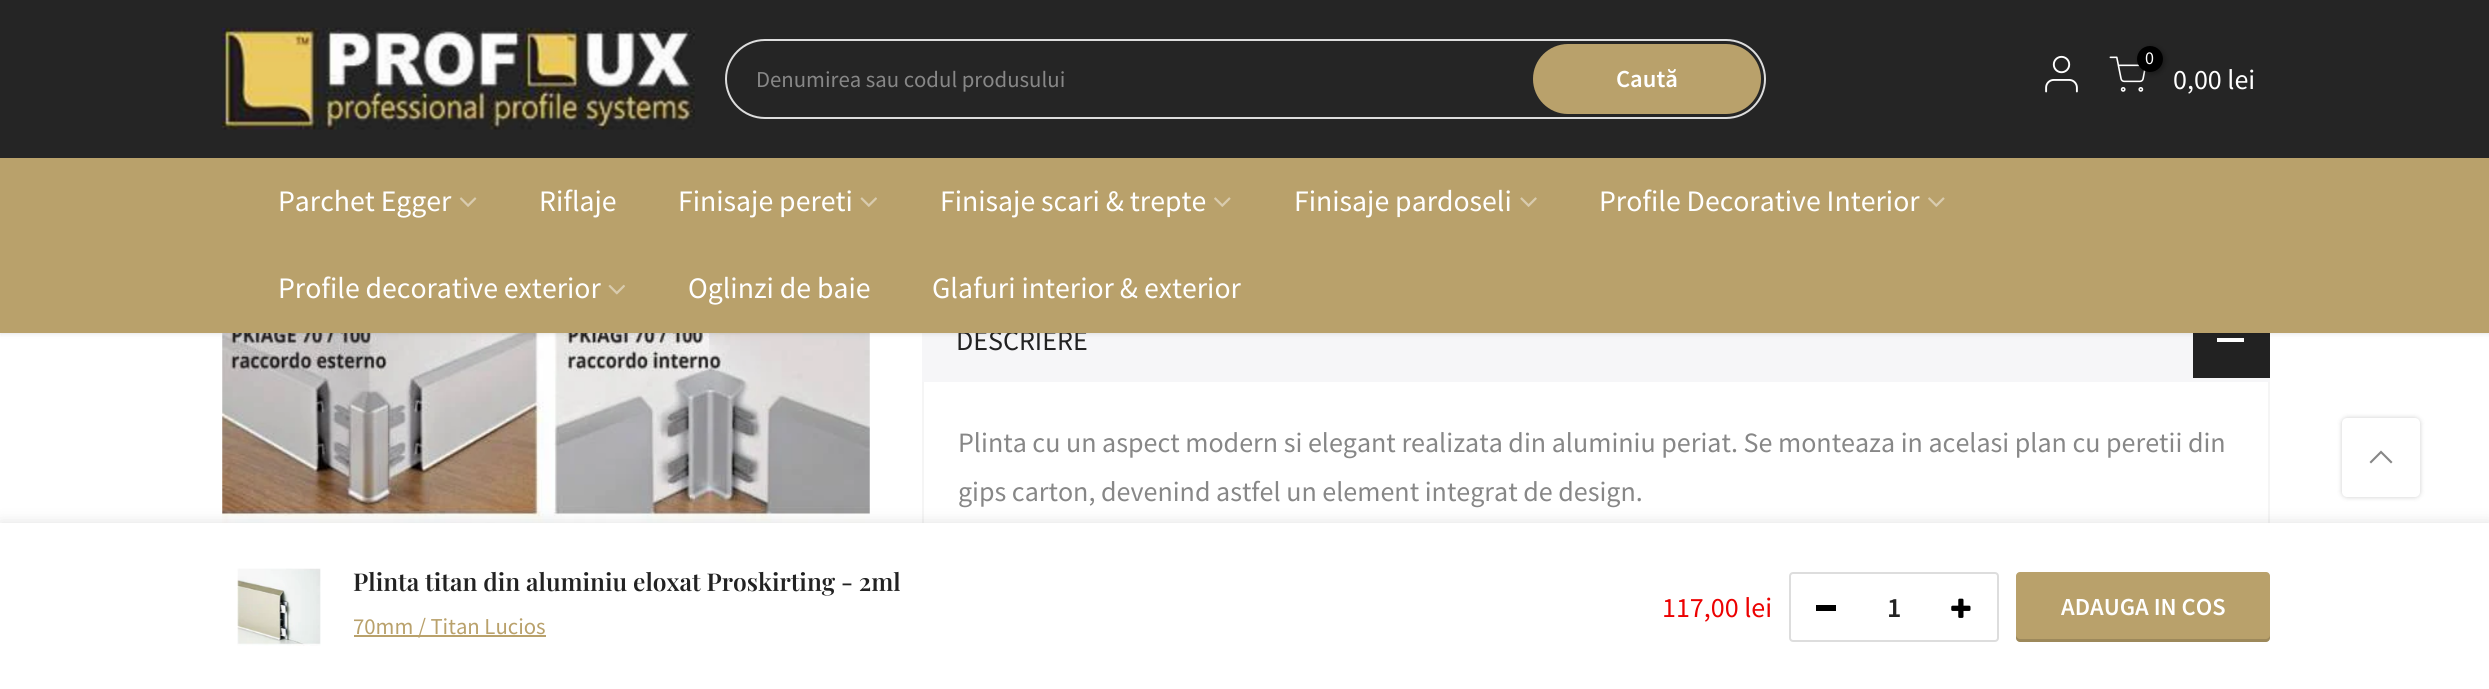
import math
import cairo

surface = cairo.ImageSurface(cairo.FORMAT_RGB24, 2489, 689)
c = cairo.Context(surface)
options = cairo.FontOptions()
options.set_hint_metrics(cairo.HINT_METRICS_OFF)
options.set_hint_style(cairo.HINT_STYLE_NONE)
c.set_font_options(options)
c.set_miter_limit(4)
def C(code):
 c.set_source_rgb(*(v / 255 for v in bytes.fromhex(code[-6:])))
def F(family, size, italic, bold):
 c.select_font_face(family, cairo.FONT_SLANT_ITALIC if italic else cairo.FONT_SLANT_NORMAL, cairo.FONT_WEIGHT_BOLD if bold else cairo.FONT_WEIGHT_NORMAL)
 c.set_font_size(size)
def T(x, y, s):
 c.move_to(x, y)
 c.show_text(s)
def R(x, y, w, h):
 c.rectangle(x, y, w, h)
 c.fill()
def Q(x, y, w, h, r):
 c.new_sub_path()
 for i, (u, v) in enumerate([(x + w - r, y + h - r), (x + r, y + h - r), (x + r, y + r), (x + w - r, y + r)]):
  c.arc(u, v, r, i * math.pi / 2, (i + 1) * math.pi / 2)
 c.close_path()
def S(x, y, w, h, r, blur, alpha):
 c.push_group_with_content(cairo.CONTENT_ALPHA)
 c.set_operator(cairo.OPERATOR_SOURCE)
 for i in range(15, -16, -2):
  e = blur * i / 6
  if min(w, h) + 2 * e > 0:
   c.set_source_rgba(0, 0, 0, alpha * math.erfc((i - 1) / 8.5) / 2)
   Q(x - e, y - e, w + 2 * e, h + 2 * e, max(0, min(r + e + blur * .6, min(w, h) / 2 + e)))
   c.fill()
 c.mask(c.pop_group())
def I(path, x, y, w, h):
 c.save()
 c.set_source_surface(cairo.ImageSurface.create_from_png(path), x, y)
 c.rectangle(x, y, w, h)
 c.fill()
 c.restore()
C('ffffff')
c.paint()
I('9.png',222,333,648,190)
C('f6f6f8')
R(922,333,1348,49)
C('222222')
R(2193,333,77,45)
C('ffffff')
R(2217,338,27,4)
C('000000')
S(0,2,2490,332,0,2.5,.1)
C('252525')
R(0,0,2489,158)
I('1.png',221,27,474,103)
Q(726,40,1039,78,39)
C('dddddd')
c.stroke()
F('Source Sans Pro',22.75,0,0)
C('878787')
T(756,87,'Denumirea sau codul produsului')
C('b9a16b')
Q(1533,44,228,70,35)
c.fill()
F('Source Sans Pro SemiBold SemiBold',24.5,0,0)
C('ffffff')
T(1616,87,'Caută')
I('2.png',2045,55,33,38)
I('3.png',2109,56,37,36)
C('000000')
S(2139,47,26,27,13,2.5,.3)
C('000000')
c.arc(2150,59,13,0,2 * math.pi)
c.fill()
F('Source Sans Pro',18,0,0)
C('ffffff')
T(2145,64,'0')
F('Source Sans Pro',28,0,0)
T(2173,89,'0,00 lei')
C('222222')
T(956,350,'DESCRIERE')
C('b9a16b')
R(0,158,2489,175)
F('Source Sans Pro',29.75,0,0)
C('ffffff')
T(278,211,'Parchet Egger')
I('4.png',459,197,18,10)
T(539,211,'Riflaje')
T(678,211,'Finisaje pereti')
I('5.png',860,197,17,10)
T(940,211,'Finisaje scari & trepte')
I('6.png',1214,197,17,10)
T(1294,211,'Finisaje pardoseli')
I('7.png',1520,197,17,10)
T(1599,211,'Profile Decorative Interior')
I('6.png',1928,197,17,10)
T(278,298,'Profile decorative exterior')
I('8.png',608,284,17,11)
T(688,298,'Oglinzi de baie')
T(932,298,'Glafuri interior & exterior')
C('f5f5f5')
R(2268,382,2,141)
R(922,382,2,141)
F('Source Sans Pro',28,0,0)
C('878787')
T(958,452,'Plinta cu un aspect modern si elegant realizata din aluminiu periat. Se monteaza in acelasi plan cu peretii din')
T(958,501,'gips carton, devenind astfel un element integrat de design.')
C('000000')
S(2342,418,78,79,5,2.5,.2)
C('ffffff')
Q(2342,418,78,79,5)
c.fill()
C('878787')
c.new_path()
c.move_to(2382.5,452)
c.line_to(2381,450.5)
c.line_to(2369.5,462)
c.line_to(2371,463.5)
c.line_to(2381,453.5)
c.line_to(2391,463.5)
c.line_to(2392.5,462)
c.close_path()
c.fill()
C('000000')
S(0,523,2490,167,0,8,.12)
C('ffffff')
R(0,523,2489,166)
I('10.png',237,568,84,78)
F('Playfair Display SemiBold',24.5,0,0)
C('222222')
T(353,591,'Plinta titan din aluminiu eloxat Proskirting - 2ml')
C('b9a16b')
R(354,635,192,2)
F('Source Sans Pro',22.75,0,0)
T(353,634,'70mm / Titan Lucios')
F('Source Sans Pro',28,0,0)
C('ec0101')
T(1662,617,'117,00 lei')
Q(1790,573,208,68,3)
C('dddddd')
c.stroke()
C('000000')
R(1816,605,20,6)
I('11.png',1951,598,20,20)
F('Source Sans Pro SemiBold SemiBold',28,0,0)
C('222222')
T(1887,617,'1')
C('b9a16b')
Q(2016,572,254,70,4)
c.fill()
c.set_source_rgba(0,0,0,0.15)
c.new_path()
c.move_to(2016,635)
c.line_to(2016,638)
c.curve_to(2016,640,2018,642,2020,642)
c.line_to(2266,642)
c.curve_to(2268,642,2270,640,2270,638)
c.line_to(2270,635)
c.curve_to(2270,637,2268,639,2266,639)
c.line_to(2020,639)
c.curve_to(2018,639,2016,637,2016,635)
c.close_path()
c.fill()
F('Source Sans Pro SemiBold SemiBold',24.5,0,0)
C('ffffff')
T(2061,615,'ADAUGA IN COS')
surface.write_to_png('o.png')
